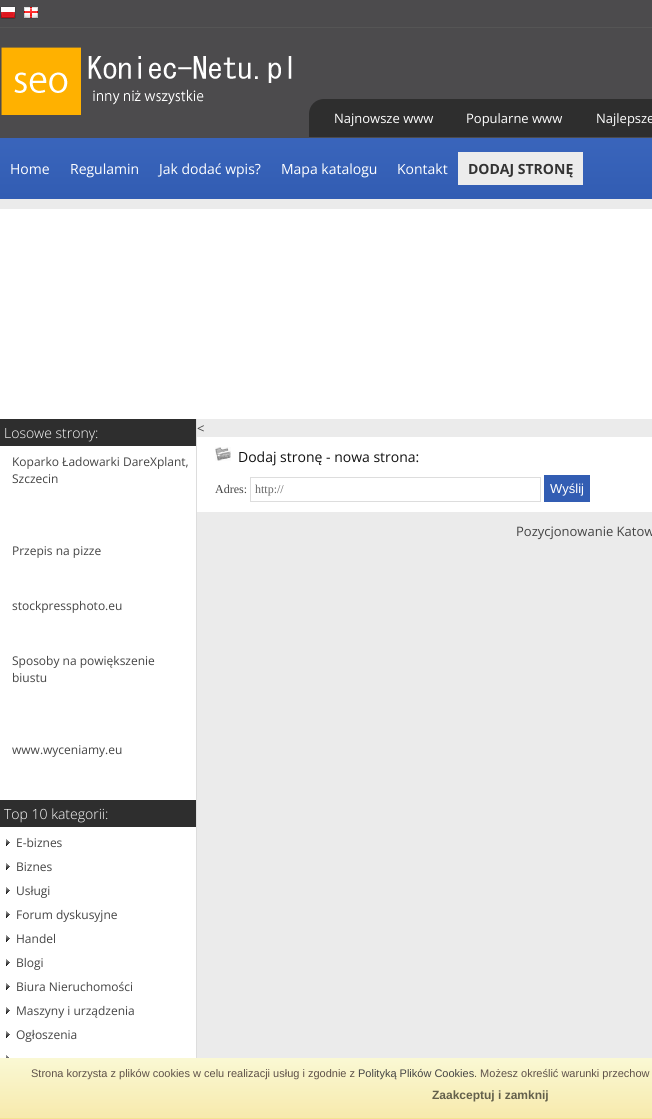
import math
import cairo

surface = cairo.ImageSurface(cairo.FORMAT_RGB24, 652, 1119)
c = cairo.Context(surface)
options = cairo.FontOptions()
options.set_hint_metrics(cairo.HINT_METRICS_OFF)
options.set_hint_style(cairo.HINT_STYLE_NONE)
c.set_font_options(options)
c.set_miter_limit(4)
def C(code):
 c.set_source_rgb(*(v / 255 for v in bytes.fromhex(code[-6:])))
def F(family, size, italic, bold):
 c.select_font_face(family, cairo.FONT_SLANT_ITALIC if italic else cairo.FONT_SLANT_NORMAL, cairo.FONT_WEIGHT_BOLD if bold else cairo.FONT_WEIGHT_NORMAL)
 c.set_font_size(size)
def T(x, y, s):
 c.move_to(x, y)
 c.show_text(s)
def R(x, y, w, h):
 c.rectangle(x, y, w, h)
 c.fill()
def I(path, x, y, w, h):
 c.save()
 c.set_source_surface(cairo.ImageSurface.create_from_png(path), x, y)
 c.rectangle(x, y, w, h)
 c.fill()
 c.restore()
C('ebebeb')
c.paint()
I('1.png',0,0,652,199)
C('555555')
R(0,27,652,1)
I('2.png',0,6,16,13)
I('3.png',24,7,14,12)
I('4.png',1,47,291,68)
C('2e2e2e')
c.new_path()
c.move_to(324,99)
c.line_to(652,99)
c.curve_to(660.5,99,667,105.5,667,114)
c.line_to(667,137)
c.line_to(309,137)
c.line_to(309,114)
c.curve_to(309,105.5,315.5,99,324,99)
c.close_path()
c.fill()
F('Open Sans',13,0,0)
C('ffffff')
T(334,123,'Najnowsze www')
T(466,123,'Popularne www')
T(596,123,'Najlepsze')
F('Open Sans',14,0,0)
T(10,174,'Home')
T(70,174,'Regulamin')
T(159,174,'Jak dodać wpis?')
T(281,174,'Mapa katalogu')
T(397,174,'Kontakt')
C('ececec')
R(458,152,125,33)
F('Open Sans',14,0,1)
C('333333')
T(468,174,'DODAJ STRONĘ')
C('ffffff')
R(0,209,652,210)
R(0,446,196,612)
C('dddddd')
R(196,419,1,639)
C('2e2e2e')
R(0,419,196,27)
F('Open Sans Light',14,0,0)
C('ffffff')
T(4,438,'Losowe strony:')
F('Open Sans',12,0,0)
C('444444')
T(12,466,'Koparko Ładowarki DareXplant,')
T(12,483,'Szczecin')
T(12,555,'Przepis na pizze')
T(12,610,'stockpressphoto.eu')
T(12,665,'Sposoby na powiększenie')
T(12,682,'biustu')
T(12,754,'www.wyceniamy.eu')
C('2e2e2e')
R(0,800,196,27)
F('Open Sans Light',14,0,0)
C('ffffff')
T(4,819,'Top 10 kategorii:')
I('5.png',6,839,4,7)
F('Open Sans',12,0,0)
C('444444')
T(16,847,'E-biznes')
I('5.png',6,863,4,7)
T(16,871,'Biznes')
I('5.png',6,887,4,7)
T(16,895,'Usługi')
I('5.png',6,911,4,7)
T(16,919,'Forum dyskusyjne')
I('5.png',6,935,4,7)
T(16,943,'Handel')
I('5.png',6,959,4,7)
T(16,967,'Blogi')
I('5.png',6,983,4,7)
T(16,991,'Biura Nieruchomości')
I('5.png',6,1007,4,7)
T(16,1015,'Maszyny i urządzenia')
I('5.png',6,1031,4,7)
T(16,1039,'Ogłoszenia')
I('6.png',6,1055,3,3)
F('Open Sans',13,0,0)
T(197,433,'<')
C('ffffff')
R(197,437,455,75)
I('7.png',215,447,16,14)
F('Open Sans',14,0,0)
C('111111')
T(238,462,'Dodaj stronę - nowa strona:')
F('Liberation Serif',12,0,0)
C('444444')
T(215,493,'Adres:')
c.rectangle(250.5,477.5,290,24)
C('dddddd')
c.set_line_width(1)
c.stroke()
C('666666')
T(255,493,'http://')
C('325db3')
R(544,475,46,27)
F('Liberation Sans',13,0,0)
C('ffffff')
T(550,493,'Wyślij')
gradient = cairo.LinearGradient(326,1058,326,1118)
gradient.add_color_stop_rgba(0,0.98,0.973,0.831,1)
gradient.add_color_stop_rgba(1,0.969,0.918,0.678,1)
c.set_source(gradient)
R(0,1058,652,60)
C('f5e393')
R(0,1118,652,1)
F('Liberation Sans',11,0,0)
C('5e5149')
T(31,1077,'Strona korzysta z plików cookies w celu realizacji usług i zgodnie z')
C('444444')
T(358,1077,'Polityką Plików Cookies')
C('5e5149')
T(474,1077,'. Możesz określić warunki przechow')
F('Liberation Sans',12,0,1)
C('63604b')
T(432,1099,'Zaakceptuj i zamknij')
F('Open Sans',13,0,0)
C('444444')
T(516,536,'Pozycjonowanie Katow')
surface.write_to_png('o.png')
